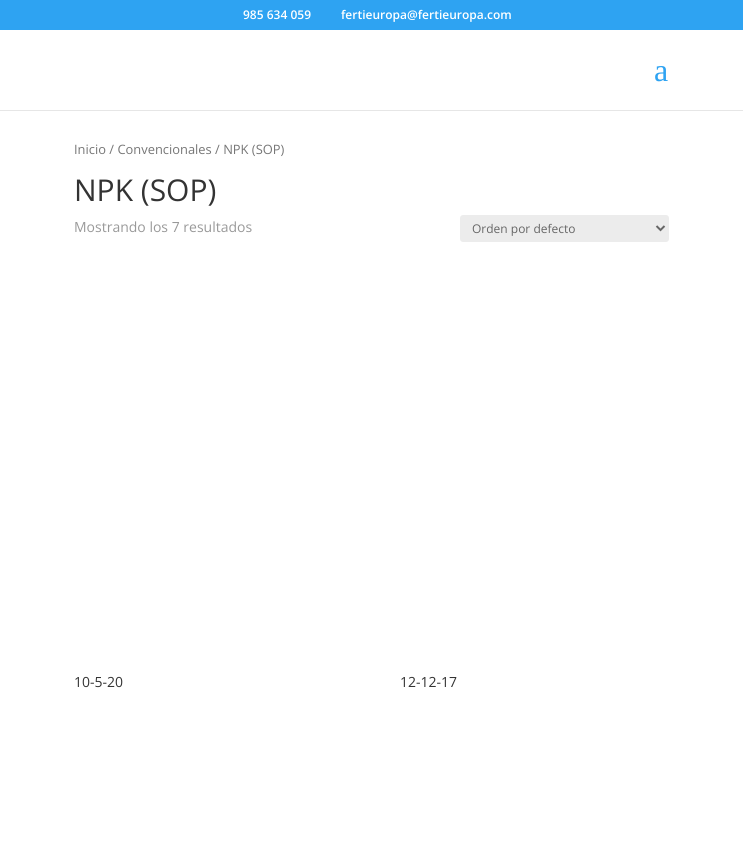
import math
import cairo

surface = cairo.ImageSurface(cairo.FORMAT_RGB24, 743, 846)
c = cairo.Context(surface)
options = cairo.FontOptions()
options.set_hint_metrics(cairo.HINT_METRICS_OFF)
options.set_hint_style(cairo.HINT_STYLE_NONE)
c.set_font_options(options)
c.set_miter_limit(4)
def C(code):
 c.set_source_rgb(*(v / 255 for v in bytes.fromhex(code[-6:])))
def F(family, size, italic, bold):
 c.select_font_face(family, cairo.FONT_SLANT_ITALIC if italic else cairo.FONT_SLANT_NORMAL, cairo.FONT_WEIGHT_BOLD if bold else cairo.FONT_WEIGHT_NORMAL)
 c.set_font_size(size)
def T(x, y, s):
 c.move_to(x, y)
 c.show_text(s)
def R(x, y, w, h):
 c.rectangle(x, y, w, h)
 c.fill()
def Q(x, y, w, h, r):
 c.new_sub_path()
 for i, (u, v) in enumerate([(x + w - r, y + h - r), (x + r, y + h - r), (x + r, y + r), (x + w - r, y + r)]):
  c.arc(u, v, r, i * math.pi / 2, (i + 1) * math.pi / 2)
 c.close_path()
C('ffffff')
c.paint()
C('2ea3f2')
R(0,0,743,30)
F('Open Sans SemiBold',12,0,0)
C('ffffff')
T(243,19,'985 634 059')
T(341,19,'fertieuropa@fertieuropa.com')
C('e6e6e6')
R(0,110,743,1)
F('Liberation Serif',32,0,0)
C('2ea3f2')
T(654,81,'a')
F('Open Sans',12.9,0,0)
C('767676')
T(74,154,'Inicio / Convencionales / NPK (SOP)')
F('Open Sans',30,0,0)
C('333333')
T(74,201,'NPK (SOP)')
F('Open Sans',14,0,0)
C('999999')
T(74,232,'Mostrando los 7 resultados')
C('ececec')
Q(460,215,209,27,3)
c.fill()
c.new_path()
c.move_to(656.5,226)
c.line_to(660.5,230)
c.line_to(664.5,226)
C('666666')
c.stroke()
F('Open Sans',12,0,0)
T(472,233,'Orden por defecto')
F('Open Sans',14,0,0)
C('333333')
T(74,687,'10-5-20')
T(400,687,'12-12-17')
surface.write_to_png('o.png')
